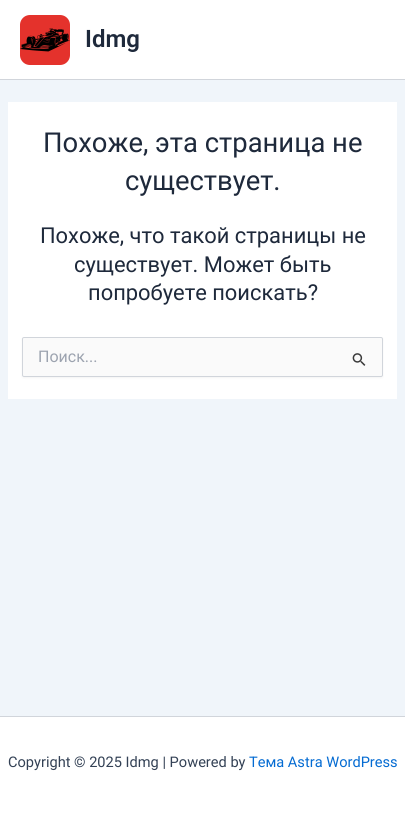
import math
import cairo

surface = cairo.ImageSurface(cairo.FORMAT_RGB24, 405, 817)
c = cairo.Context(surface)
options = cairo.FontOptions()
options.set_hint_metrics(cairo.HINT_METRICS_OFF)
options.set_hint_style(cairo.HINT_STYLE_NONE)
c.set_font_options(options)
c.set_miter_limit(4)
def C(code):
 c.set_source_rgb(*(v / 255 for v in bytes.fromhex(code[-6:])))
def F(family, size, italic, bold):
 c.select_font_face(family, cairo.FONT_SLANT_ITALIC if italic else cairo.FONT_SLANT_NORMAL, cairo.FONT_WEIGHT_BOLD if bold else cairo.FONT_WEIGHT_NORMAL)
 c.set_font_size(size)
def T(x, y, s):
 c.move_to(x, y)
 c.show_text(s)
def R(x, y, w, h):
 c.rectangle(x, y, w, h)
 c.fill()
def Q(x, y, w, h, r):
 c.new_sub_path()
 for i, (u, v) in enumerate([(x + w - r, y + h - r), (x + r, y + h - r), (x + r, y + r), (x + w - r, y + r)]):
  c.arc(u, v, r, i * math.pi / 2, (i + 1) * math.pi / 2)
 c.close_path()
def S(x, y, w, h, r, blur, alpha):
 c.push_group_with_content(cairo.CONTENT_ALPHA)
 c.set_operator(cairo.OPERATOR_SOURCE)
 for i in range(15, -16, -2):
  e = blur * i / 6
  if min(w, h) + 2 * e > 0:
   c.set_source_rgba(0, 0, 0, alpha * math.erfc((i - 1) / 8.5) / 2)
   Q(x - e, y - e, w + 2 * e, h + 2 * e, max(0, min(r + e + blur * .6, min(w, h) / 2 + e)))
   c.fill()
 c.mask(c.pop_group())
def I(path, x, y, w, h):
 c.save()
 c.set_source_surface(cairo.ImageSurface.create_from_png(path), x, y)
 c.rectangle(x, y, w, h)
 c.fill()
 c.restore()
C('f0f5fa')
c.paint()
C('ffffff')
R(0,0,405,79)
C('d1d5db')
R(0,79,405,1)
I('1.png',20,15,50,50)
F('Roboto SemiBold',24,0,0)
C('1e293b')
T(85,47,'Idmg')
C('ffffff')
R(8,102,389,297)
F('Roboto',27.4,0,0)
C('1e293b')
T(43,152,'Похоже, эта страница не')
T(125,190,'существует.')
F('Roboto',21.9,0,0)
T(40,243,'Похоже, что такой страницы не')
T(74,272,'существует. Может быть')
T(88,300,'попробуете поискать?')
C('000000')
S(22,338,361,40,2,1,.05)
C('fafafa')
Q(22.5,337.5,360,39,1.5)
c.fill_preserve()
C('d1d5db')
c.set_line_width(1)
c.stroke()
F('Roboto',16,0,0)
C('9ca3af')
T(38,362,'Поиск...')
I('2.png',352,353,14,13)
C('ffffff')
R(0,717,405,100)
C('d1d5db')
R(0,716,405,1)
F('Roboto',14.6,0,0)
C('334155')
T(8,767,'Copyright © 2025 Idmg | Powered by')
C('046bd2')
T(249,767,'Тема Astra WordPress')
surface.write_to_png('o.png')
